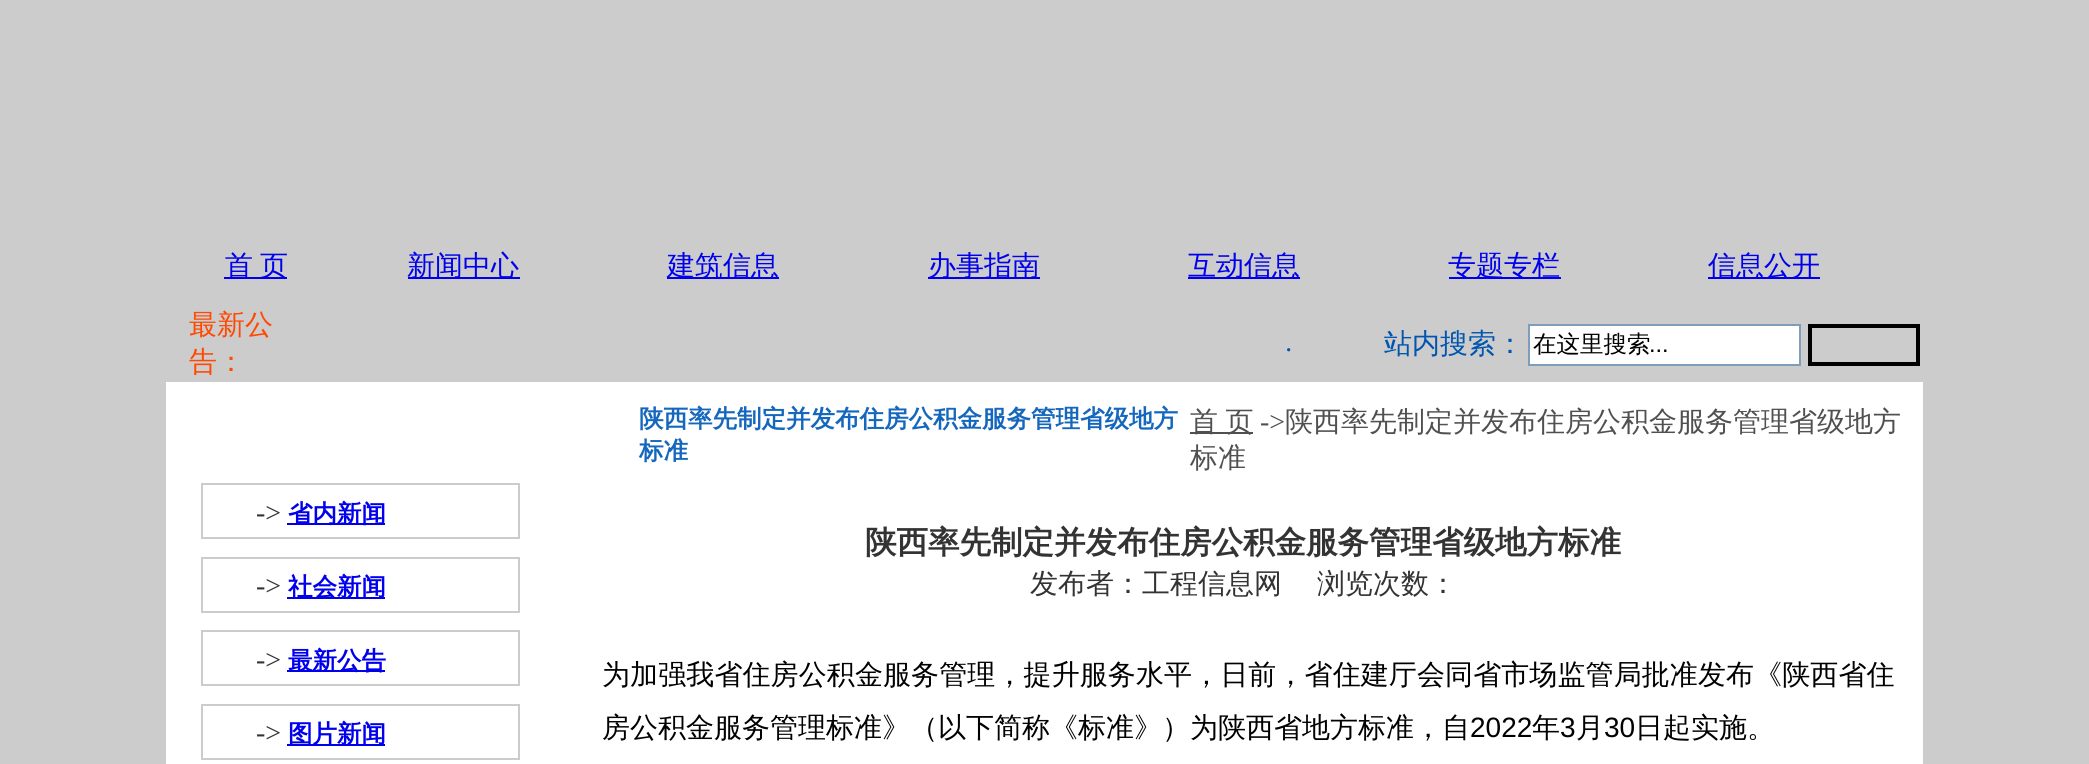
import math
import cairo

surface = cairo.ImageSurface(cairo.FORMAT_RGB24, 2089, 764)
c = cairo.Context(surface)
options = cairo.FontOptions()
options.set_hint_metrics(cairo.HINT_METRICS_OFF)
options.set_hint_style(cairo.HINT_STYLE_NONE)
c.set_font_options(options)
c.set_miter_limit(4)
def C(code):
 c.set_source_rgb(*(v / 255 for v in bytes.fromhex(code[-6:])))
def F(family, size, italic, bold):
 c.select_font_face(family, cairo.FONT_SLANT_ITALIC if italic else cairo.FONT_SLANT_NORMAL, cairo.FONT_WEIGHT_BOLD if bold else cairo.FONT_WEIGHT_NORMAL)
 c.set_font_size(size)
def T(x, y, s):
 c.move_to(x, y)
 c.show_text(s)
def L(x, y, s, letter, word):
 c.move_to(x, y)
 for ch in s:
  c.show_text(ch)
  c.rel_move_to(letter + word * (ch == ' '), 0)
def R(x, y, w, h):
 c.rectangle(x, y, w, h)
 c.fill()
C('cccccc')
c.paint()
C('0000ee')
R(224,277,63,2)
F('WenQuanYi Zen Hei Medium',28,0,0)
T(225,275,'首')
T(260,275,'页')
R(408,277,112,2)
T(407,275,'新闻中心')
R(667,277,112,2)
T(667,275,'建筑信息')
R(928,277,112,2)
T(928,275,'办事指南')
R(1188,277,112,2)
T(1188,275,'互动信息')
R(1449,277,112,2)
T(1448,275,'专题专栏')
R(1708,277,112,2)
T(1708,275,'信息公开')
C('ff4800')
T(189,334,'最新公')
T(189,371,'告：')
F('Liberation Serif',28,0,0)
C('0055af')
T(1284,359,'·')
F('WenQuanYi Zen Hei Medium',28,0,0)
T(1384,353,'站内搜索：')
C('ffffff')
c.rectangle(1529,325,271,40)
c.fill_preserve()
C('7f9db9')
c.stroke()
F('WenQuanYi Zen Hei Medium',23.5,0,0)
C('000000')
T(1533,352,'在这里搜索')
F('Liberation Sans',23.5,0,0)
T(1649,352,'...')
c.rectangle(1810,326,108,38)
c.set_line_width(4)
c.stroke()
C('ffffff')
R(166,382,1757,382)
c.rectangle(202,484,317,54)
C('cccccc')
c.set_line_width(2)
c.stroke()
F('Liberation Serif',28,0,0)
C('333333')
T(256,522,'->')
C('0000ee')
R(287,523,98,2)
F('WenQuanYi Zen Hei',24.5,0,1)
T(288,522,'省内新闻')
c.rectangle(202,558,317,54)
C('cccccc')
c.stroke()
F('Liberation Serif',28,0,0)
C('333333')
T(256,595,'->')
C('0000ee')
R(287,597,98,2)
F('WenQuanYi Zen Hei',24.5,0,1)
T(288,595,'社会新闻')
c.rectangle(202,631,317,54)
C('cccccc')
c.stroke()
F('Liberation Serif',28,0,0)
C('333333')
T(256,669,'->')
C('0000ee')
R(287,670,98,2)
F('WenQuanYi Zen Hei',24.5,0,1)
T(288,669,'最新公告')
c.rectangle(202,705,317,54)
C('cccccc')
c.stroke()
F('Liberation Serif',28,0,0)
C('333333')
T(256,742,'->')
C('0000ee')
R(287,744,98,2)
F('WenQuanYi Zen Hei',24.5,0,1)
T(288,742,'图片新闻')
C('1567bd')
T(639,427,'陕西率先制定并发布住房公积金服务管理省级地方')
T(639,459,'标准')
C('505050')
R(1190,432,63,2)
F('WenQuanYi Zen Hei Medium',28,0,0)
L(1190,431,'首 页',0,-1)
F('Liberation Serif',28,0,0)
T(1260,431,'->')
F('WenQuanYi Zen Hei Medium',28,0,0)
T(1285,431,'陕西率先制定并发布住房公积金服务管理省级地方')
T(1190,467,'标准')
F('WenQuanYi Zen Hei',31.5,0,1)
C('333333')
T(865,553,'陕西率先制定并发布住房公积金服务管理省级地方标准')
F('WenQuanYi Zen Hei Medium',28,0,0)
T(1030,593,'发布者：工程信息网')
T(1317,593,'浏览次数：')
C('000000')
L(602,684,'为加强我省住房公积金服务管理，提升服务水平，日前，省住建厅会同省市场监管局批准发布《陕西省住',.1,0)
T(602,737,'房公积金服务管理标准》（以下简称《标准》）为陕西省地方标准，自')
F('Liberation Sans',28,0,0)
T(1470,737,'2022')
F('WenQuanYi Zen Hei Medium',28,0,0)
T(1532,737,'年')
F('Liberation Sans',28,0,0)
T(1560,737,'3')
F('WenQuanYi Zen Hei Medium',28,0,0)
T(1576,737,'月')
F('Liberation Sans',28,0,0)
T(1604,737,'30')
F('WenQuanYi Zen Hei Medium',28,0,0)
T(1635,737,'日起实施。')
surface.write_to_png('o.png')
